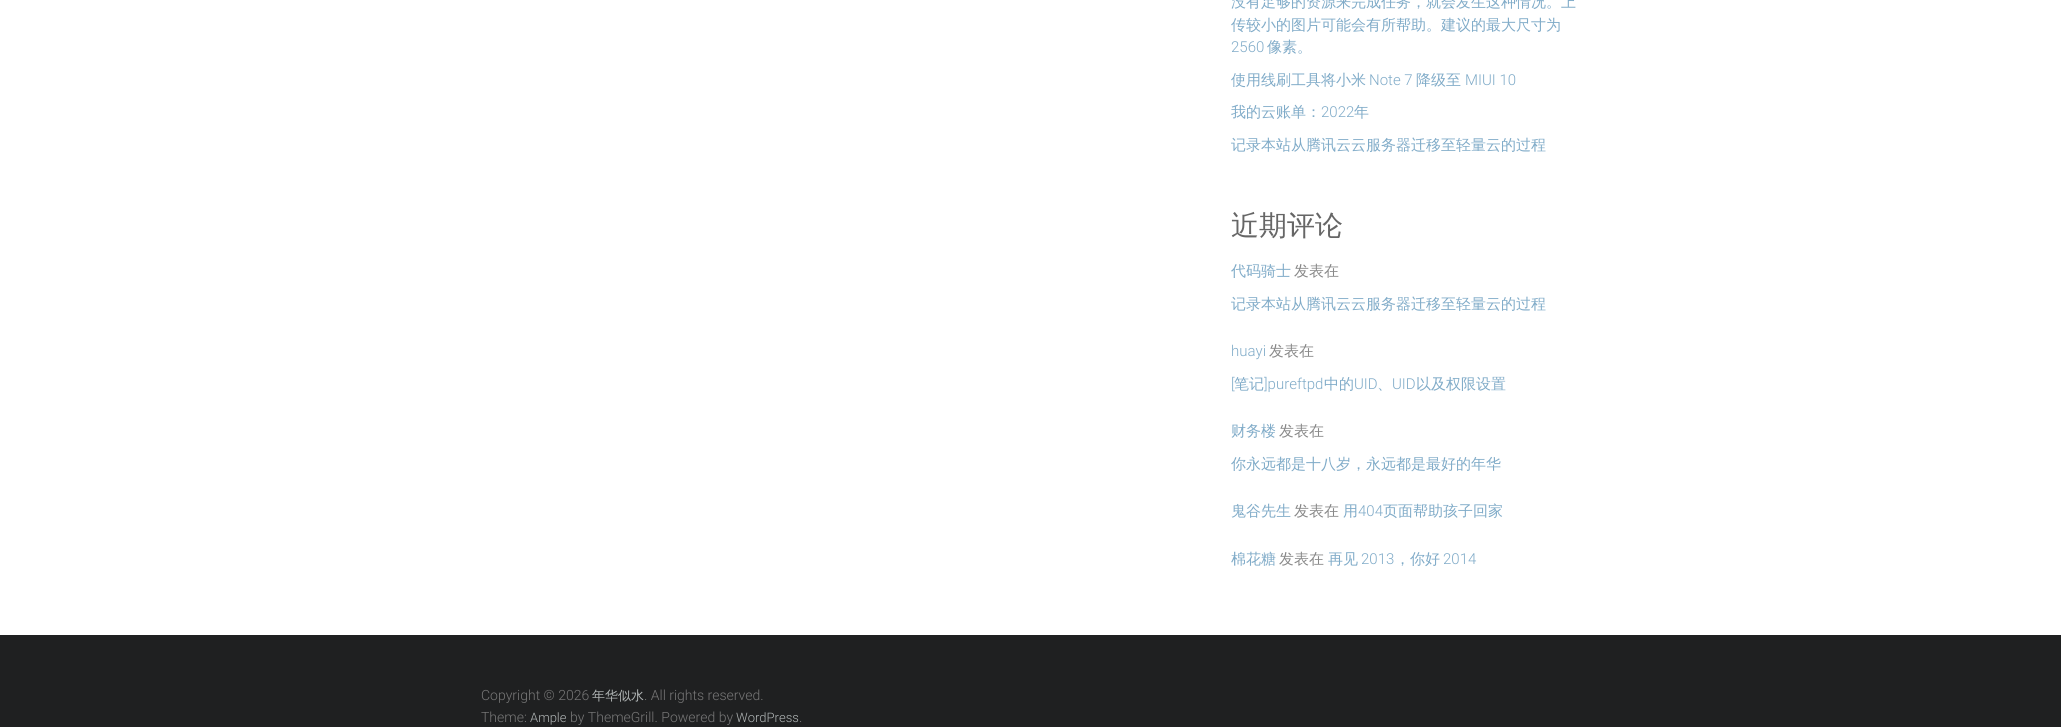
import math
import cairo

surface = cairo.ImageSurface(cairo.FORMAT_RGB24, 2061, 727)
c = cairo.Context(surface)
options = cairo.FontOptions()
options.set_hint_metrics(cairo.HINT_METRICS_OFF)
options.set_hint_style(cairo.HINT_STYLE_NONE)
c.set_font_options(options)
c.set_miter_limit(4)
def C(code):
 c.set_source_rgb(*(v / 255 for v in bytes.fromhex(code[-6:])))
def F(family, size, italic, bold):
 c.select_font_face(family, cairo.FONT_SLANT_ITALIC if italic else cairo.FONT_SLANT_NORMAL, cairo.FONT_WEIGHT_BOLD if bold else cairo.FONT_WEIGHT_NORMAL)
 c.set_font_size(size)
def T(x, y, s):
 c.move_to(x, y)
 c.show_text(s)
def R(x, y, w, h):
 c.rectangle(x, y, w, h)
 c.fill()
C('ffffff')
c.paint()
F('WenQuanYi Zen Hei Medium',15,0,0)
C('80abc8')
T(1231,7,'没有足够的资源来完成任务，就会发生这种情况。上')
T(1231,30,'传较小的图片可能会有所帮助。建议的最大尺寸为')
F('Roboto Light',15,0,0)
T(1231,52,'2560')
F('WenQuanYi Zen Hei Medium',15,0,0)
T(1267,52,'像素。')
T(1231,85,'使用线刷工具将小米')
F('Roboto Light',15,0,0)
T(1369,85,'Note 7')
F('WenQuanYi Zen Hei Medium',15,0,0)
T(1416,85,'降级至')
F('Roboto Light',15,0,0)
T(1465,85,'MIUI 10')
F('WenQuanYi Zen Hei Medium',15,0,0)
T(1231,117,'我的云账单：')
F('Roboto Light',15,0,0)
T(1321,117,'2022')
F('WenQuanYi Zen Hei Medium',15,0,0)
T(1354,117,'年')
T(1231,150,'记录本站从腾讯云云服务器迁移至轻量云的过程')
F('WenQuanYi Zen Hei Medium',28,0,0)
C('666666')
T(1231,235,'近期评论')
F('WenQuanYi Zen Hei Medium',15,0,0)
C('80abc8')
T(1231,276,'代码骑士')
C('888888')
T(1294,276,'发表在')
C('80abc8')
T(1231,309,'记录本站从腾讯云云服务器迁移至轻量云的过程')
F('Roboto Light',15,0,0)
T(1231,356,'huayi')
F('WenQuanYi Zen Hei Medium',15,0,0)
C('888888')
T(1269,356,'发表在')
F('Roboto Light',15,0,0)
C('80abc8')
T(1231,389,'[')
F('WenQuanYi Zen Hei Medium',15,0,0)
T(1234,389,'笔记')
F('Roboto Light',15,0,0)
T(1264,389,']pureftpd')
F('WenQuanYi Zen Hei Medium',15,0,0)
T(1324,389,'中的')
F('Roboto Light',15,0,0)
T(1354,389,'UID')
F('WenQuanYi Zen Hei Medium',15,0,0)
T(1377,389,'、')
F('Roboto Light',15,0,0)
T(1392,389,'UID')
F('WenQuanYi Zen Hei Medium',15,0,0)
T(1416,389,'以及权限设置')
T(1231,436,'财务楼')
C('888888')
T(1279,436,'发表在')
C('80abc8')
T(1231,469,'你永远都是十八岁，永远都是最好的年华')
T(1231,516,'鬼谷先生')
C('888888')
T(1294,516,'发表在')
C('80abc8')
T(1343,516,'用')
F('Roboto Light',15,0,0)
T(1358,516,'404')
F('WenQuanYi Zen Hei Medium',15,0,0)
T(1383,516,'页面帮助孩子回家')
T(1231,564,'棉花糖')
C('888888')
T(1279,564,'发表在')
C('80abc8')
T(1328,564,'再见')
F('Roboto Light',15,0,0)
T(1361,564,'2013')
F('WenQuanYi Zen Hei Medium',15,0,0)
T(1395,564,'，你好')
F('Roboto Light',15,0,0)
T(1443,564,'2014')
C('1f2021')
R(0,635,2061,92)
F('Roboto Light',14,0,0)
C('777777')
T(481,700,'Copyright © 2026')
F('WenQuanYi Zen Hei Medium',13,0,0)
C('b1b6b6')
T(592,700,'年华似水')
F('Roboto Light',14,0,0)
C('777777')
T(644,700,'. All rights reserved.')
T(481,722,'Theme:')
F('Roboto Light',13,0,0)
C('b1b6b6')
T(530,722,'Ample')
F('Roboto Light',14,0,0)
C('777777')
T(570,722,'by ThemeGrill. Powered by')
F('Roboto Light',13,0,0)
C('b1b6b6')
T(736,722,'WordPress')
F('Roboto Light',14,0,0)
C('777777')
T(799,722,'.')
surface.write_to_png('o.png')
